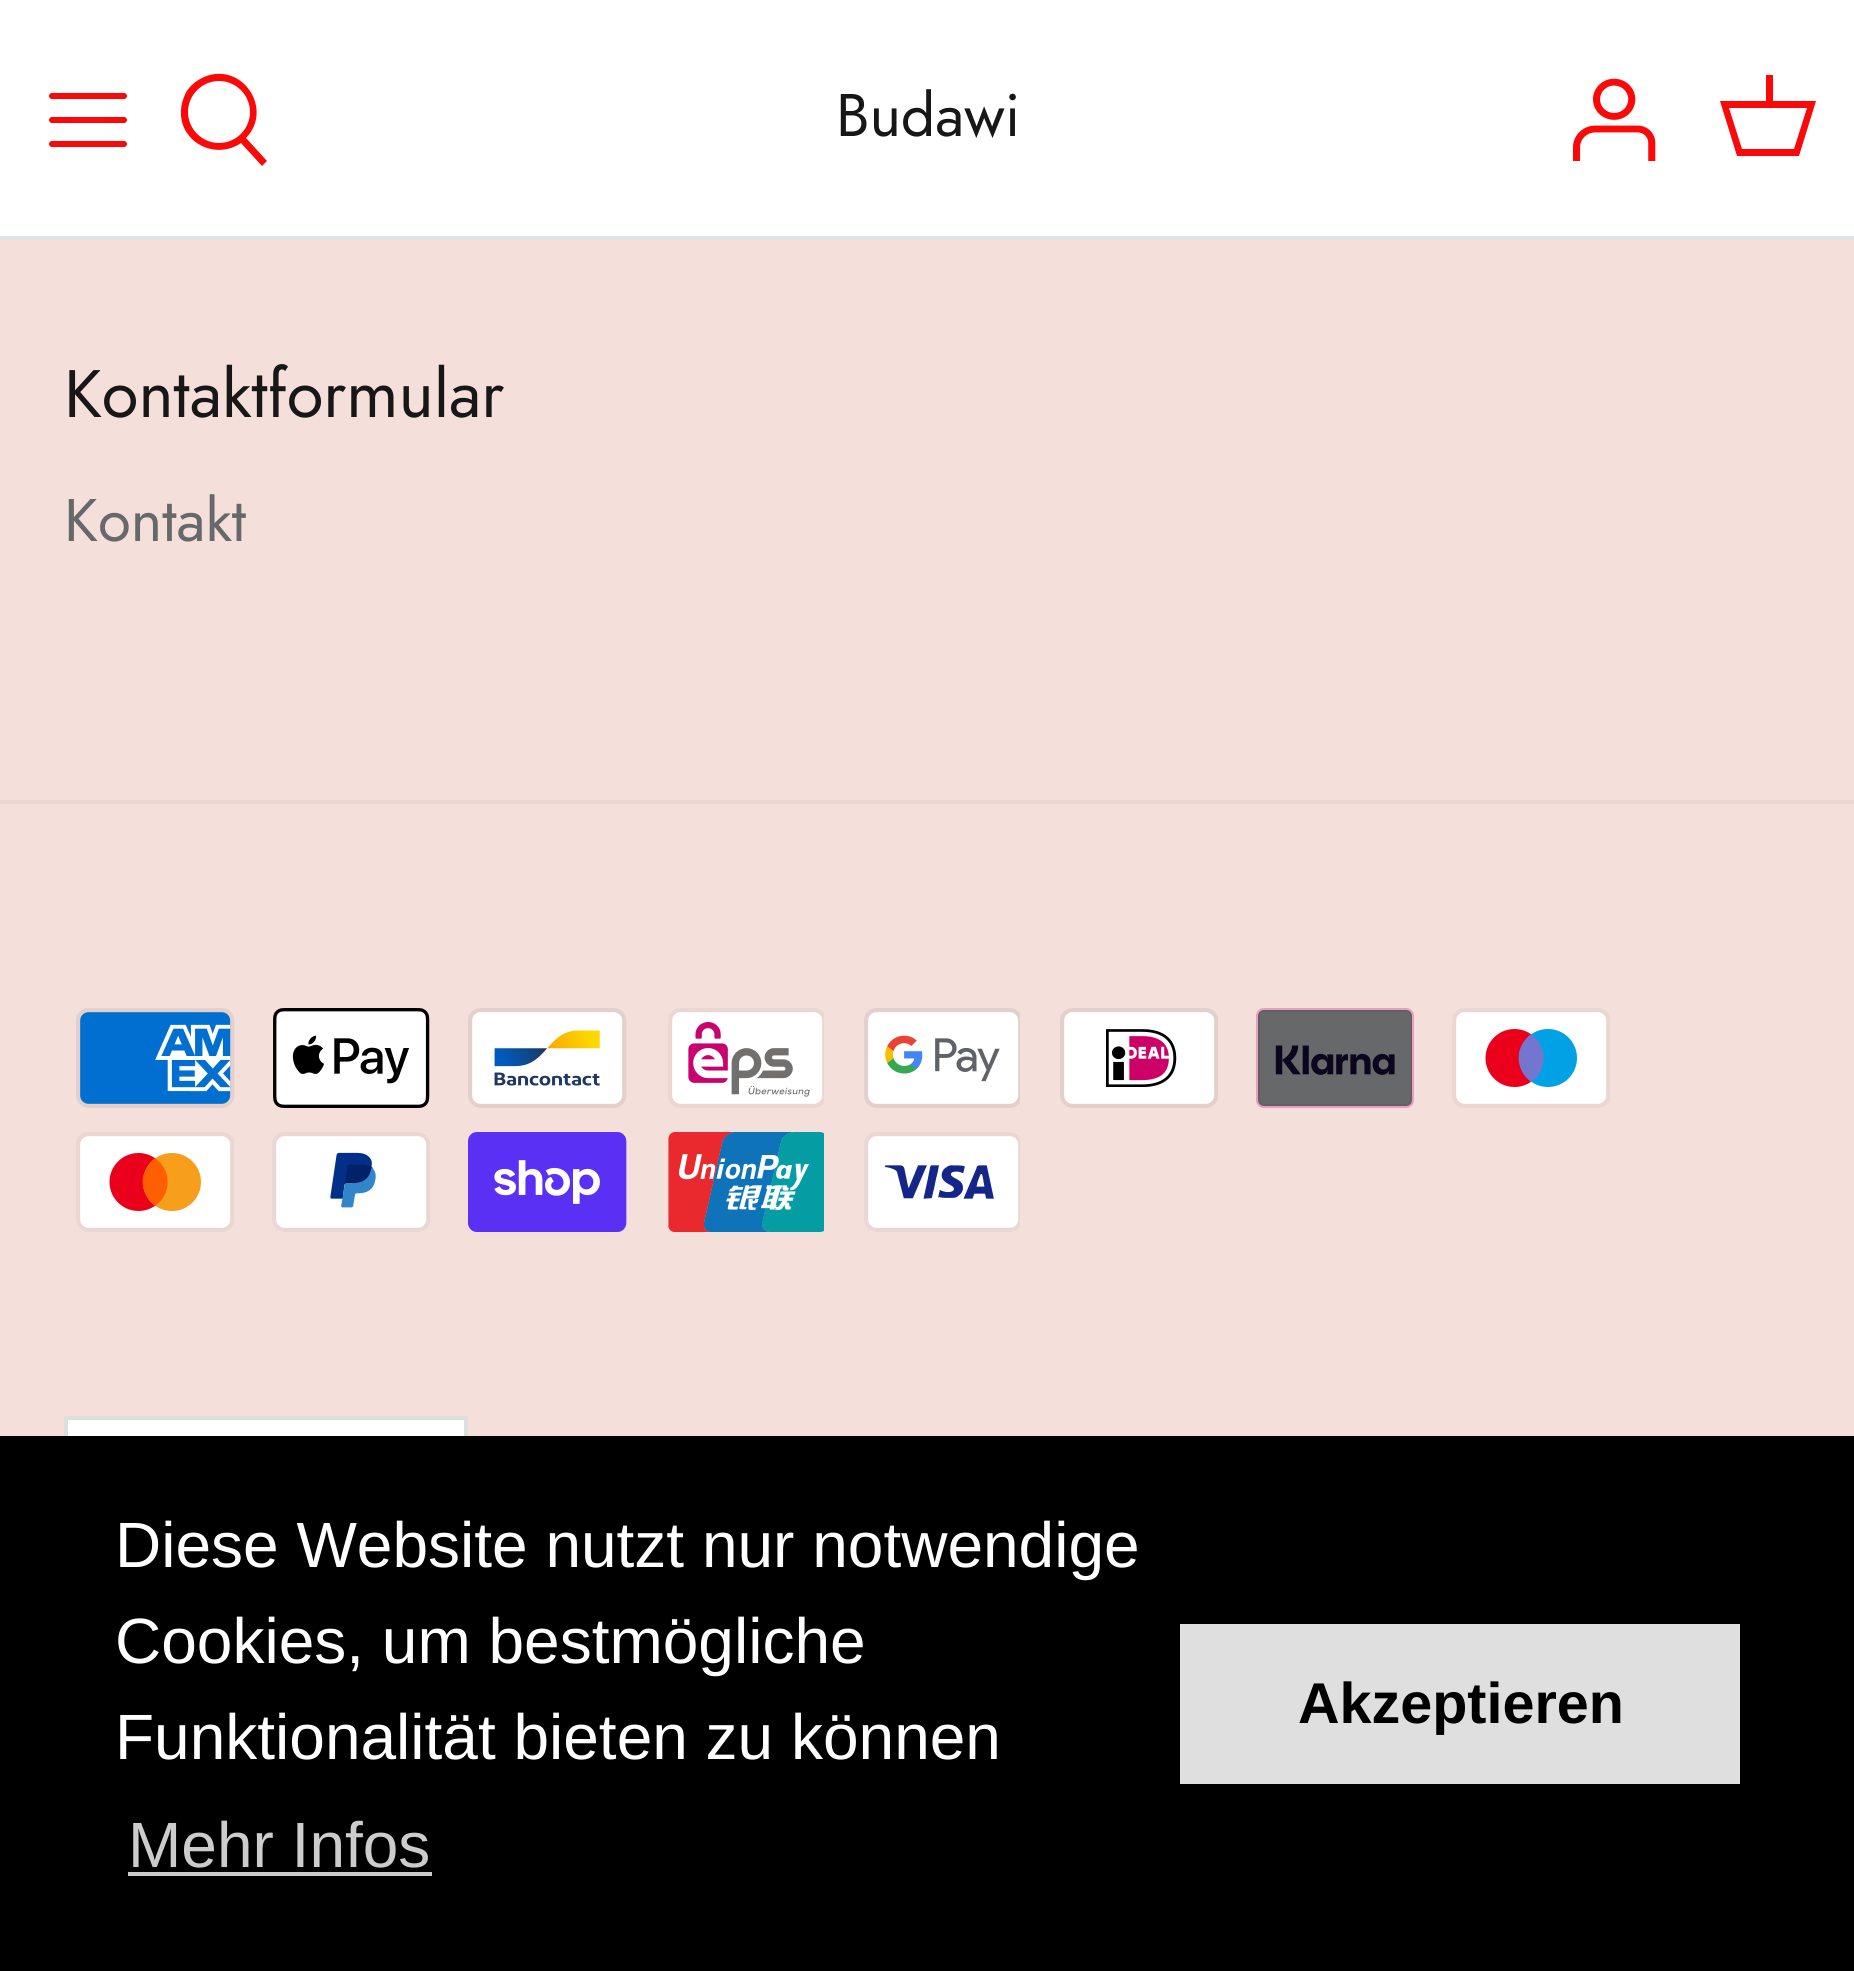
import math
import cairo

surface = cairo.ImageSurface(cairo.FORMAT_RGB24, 1854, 1971)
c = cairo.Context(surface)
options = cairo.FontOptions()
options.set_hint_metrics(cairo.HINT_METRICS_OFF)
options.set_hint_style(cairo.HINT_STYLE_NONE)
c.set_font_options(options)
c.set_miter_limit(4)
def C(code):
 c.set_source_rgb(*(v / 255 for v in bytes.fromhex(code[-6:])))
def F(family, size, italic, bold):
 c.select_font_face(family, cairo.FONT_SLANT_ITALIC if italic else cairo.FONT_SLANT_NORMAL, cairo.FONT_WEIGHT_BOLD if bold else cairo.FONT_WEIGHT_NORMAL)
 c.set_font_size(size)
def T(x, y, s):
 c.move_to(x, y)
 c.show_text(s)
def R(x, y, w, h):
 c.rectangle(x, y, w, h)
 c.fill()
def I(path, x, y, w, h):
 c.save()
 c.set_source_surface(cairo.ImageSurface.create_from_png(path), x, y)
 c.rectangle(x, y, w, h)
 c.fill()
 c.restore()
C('f4dfdb')
c.paint()
C('ffffff')
R(0,0,1854,236)
C('dfe3e8')
R(0,236,1854,4)
c.new_path()
c.move_to(52,96)
c.line_to(124,96)
C('fb0808')
c.set_line_width(6)
c.set_line_cap(cairo.LINE_CAP_ROUND)
c.set_line_join(cairo.LINE_JOIN_ROUND)
c.stroke()
c.new_path()
c.move_to(52,120)
c.line_to(124,120)
c.stroke()
c.new_path()
c.move_to(52,144)
c.line_to(124,144)
c.stroke()
c.new_path()
c.move_to(246,138)
c.line_to(267,161)
c.line_to(262,166)
c.line_to(241,143)
c.curve_to(224,155,199,151,187,133)
c.curve_to(180,123,179,109,184,97)
c.curve_to(187,88,195,81,204,77)
c.curve_to(242,61,274,109,246,138)
c.close_path()
c.move_to(219,143)
c.curve_to(236,143,250,129,250,112)
c.curve_to(250,95,236,81,219,81)
c.curve_to(202,81,188,95,188,112)
c.curve_to(188,129,202,143,219,143)
c.close_path()
c.fill()
F('Jost',60,0,0)
C('171717')
T(836,136,'Budawi')
I('1.png',1573,78,83,83)
C('fb0808')
c.new_path()
c.move_to(1766,101)
c.line_to(1766,75)
c.line_to(1773,75)
c.line_to(1773,101)
c.line_to(1816,101)
c.line_to(1799,156)
c.line_to(1737,156)
c.line_to(1720,101)
c.close_path()
c.move_to(1729,108)
c.line_to(1742,149)
c.line_to(1794,149)
c.line_to(1807,108)
c.close_path()
c.fill()
F('Jost',67,0,0)
C('171717')
T(64,417,'Kontaktformular')
F('Jost',60,0,0)
C('676869')
T(64,541,'Kontakt')
C('ecd6d1')
R(0,800,1854,4)
I('2.png',76,1008,159,100)
I('3.png',273,1008,157,100)
I('4.png',468,1008,159,100)
I('5.png',668,1008,156,100)
I('6.png',864,1008,156,100)
I('7.png',1060,1008,158,100)
I('8.png',1256,1008,158,100)
I('9.png',1452,1008,158,100)
I('10.png',76,1132,158,100)
I('11.png',272,1132,158,100)
I('12.png',468,1132,159,100)
I('13.png',668,1132,156,100)
I('14.png',864,1132,156,100)
C('ffffff')
R(68,1420,396,16)
c.rectangle(66,1418,400,168)
C('dddede')
c.set_line_width(4)
c.set_line_cap(cairo.LINE_CAP_BUTT)
c.set_line_join(cairo.LINE_JOIN_MITER)
c.stroke()
C('000000')
R(0,1436,1854,535)
F('Liberation Sans',64,0,0)
C('ffffff')
T(115,1567,'Diese Website nutzt nur notwendige')
T(115,1663,'Cookies, um bestmögliche')
T(115,1759,'Funktionalität bieten zu können')
C('cccccc')
T(128,1867,'Mehr Infos')
R(128,1872,304,4)
C('dfdfdf')
R(1180,1624,560,160)
F('Liberation Sans',57.5,0,1)
C('000000')
T(1298,1723,'Akzeptieren')
surface.write_to_png('o.png')
